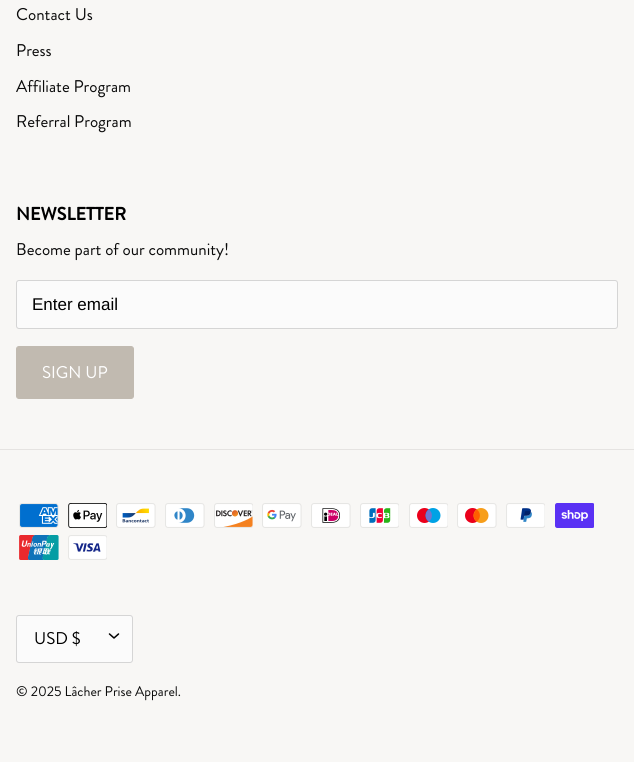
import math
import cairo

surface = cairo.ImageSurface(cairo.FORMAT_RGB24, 634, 762)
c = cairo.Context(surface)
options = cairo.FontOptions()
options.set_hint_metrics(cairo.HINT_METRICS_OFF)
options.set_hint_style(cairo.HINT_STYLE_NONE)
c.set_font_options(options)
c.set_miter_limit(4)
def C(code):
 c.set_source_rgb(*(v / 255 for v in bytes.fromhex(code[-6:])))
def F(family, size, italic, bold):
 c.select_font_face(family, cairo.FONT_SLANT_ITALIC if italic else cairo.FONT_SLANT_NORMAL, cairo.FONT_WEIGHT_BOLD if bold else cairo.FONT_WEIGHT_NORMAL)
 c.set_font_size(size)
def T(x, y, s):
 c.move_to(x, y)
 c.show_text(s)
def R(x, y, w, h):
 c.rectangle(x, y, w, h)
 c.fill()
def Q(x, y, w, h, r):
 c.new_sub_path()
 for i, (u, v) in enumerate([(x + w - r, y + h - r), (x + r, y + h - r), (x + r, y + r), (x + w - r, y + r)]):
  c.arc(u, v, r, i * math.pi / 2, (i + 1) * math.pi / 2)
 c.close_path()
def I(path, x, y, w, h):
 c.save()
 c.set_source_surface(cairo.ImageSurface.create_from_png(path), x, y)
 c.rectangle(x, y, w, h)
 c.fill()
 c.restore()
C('f8f7f5')
c.paint()
F('Brandon Grotesque',17,0,0)
C('0b0b0b')
T(16,20,'Contact Us')
T(16,56,'Press')
T(16,92,'Affiliate Program')
T(16,127,'Referral Program')
F('Brandon Grotesque',18,0,1)
C('000000')
T(16,220,'NEWSLETTER')
F('Brandon Grotesque',17,0,0)
C('0b0b0b')
T(16,255,'Become part of our community!')
C('fbfbfb')
Q(16.5,280.5,601,48,2.5)
c.fill_preserve()
C('d5d5d5')
c.set_line_width(1)
c.stroke()
F('Liberation Sans',17,0,0)
C('000000')
T(32,310,'Enter email')
C('c1bab0')
Q(16.5,346.5,117,52,2.5)
c.fill_preserve()
c.stroke()
F('Brandon Grotesque',17,0,0)
C('ffffff')
T(42,378,'SIGN UP')
C('e5e3e1')
R(0,449,634,1)
I('1.png',19,503,40,25)
I('2.png',68,503,39,25)
I('3.png',116,503,40,25)
I('4.png',165,503,40,25)
I('5.png',214,503,39,25)
I('6.png',262,503,40,25)
I('7.png',311,503,40,25)
I('8.png',360,503,39,25)
I('9.png',409,503,39,25)
I('10.png',457,503,40,25)
I('11.png',506,503,39,25)
I('12.png',555,503,39,25)
I('13.png',19,535,40,25)
I('14.png',68,535,39,25)
C('fbfbfb')
Q(16.5,615.5,116,47,2.5)
c.fill_preserve()
C('d5d5d5')
c.stroke()
C('000000')
T(34,644,'USD $')
c.new_path()
c.move_to(109.5,634)
c.line_to(114,638)
c.line_to(118.5,634)
c.set_line_width(1.5)
c.set_line_cap(cairo.LINE_CAP_ROUND)
c.set_line_join(cairo.LINE_JOIN_ROUND)
c.stroke()
F('Brandon Grotesque',14,0,0)
C('0b0b0b')
T(16,696,'© 2025 Lâcher Prise Apparel.')
surface.write_to_png('o.png')
